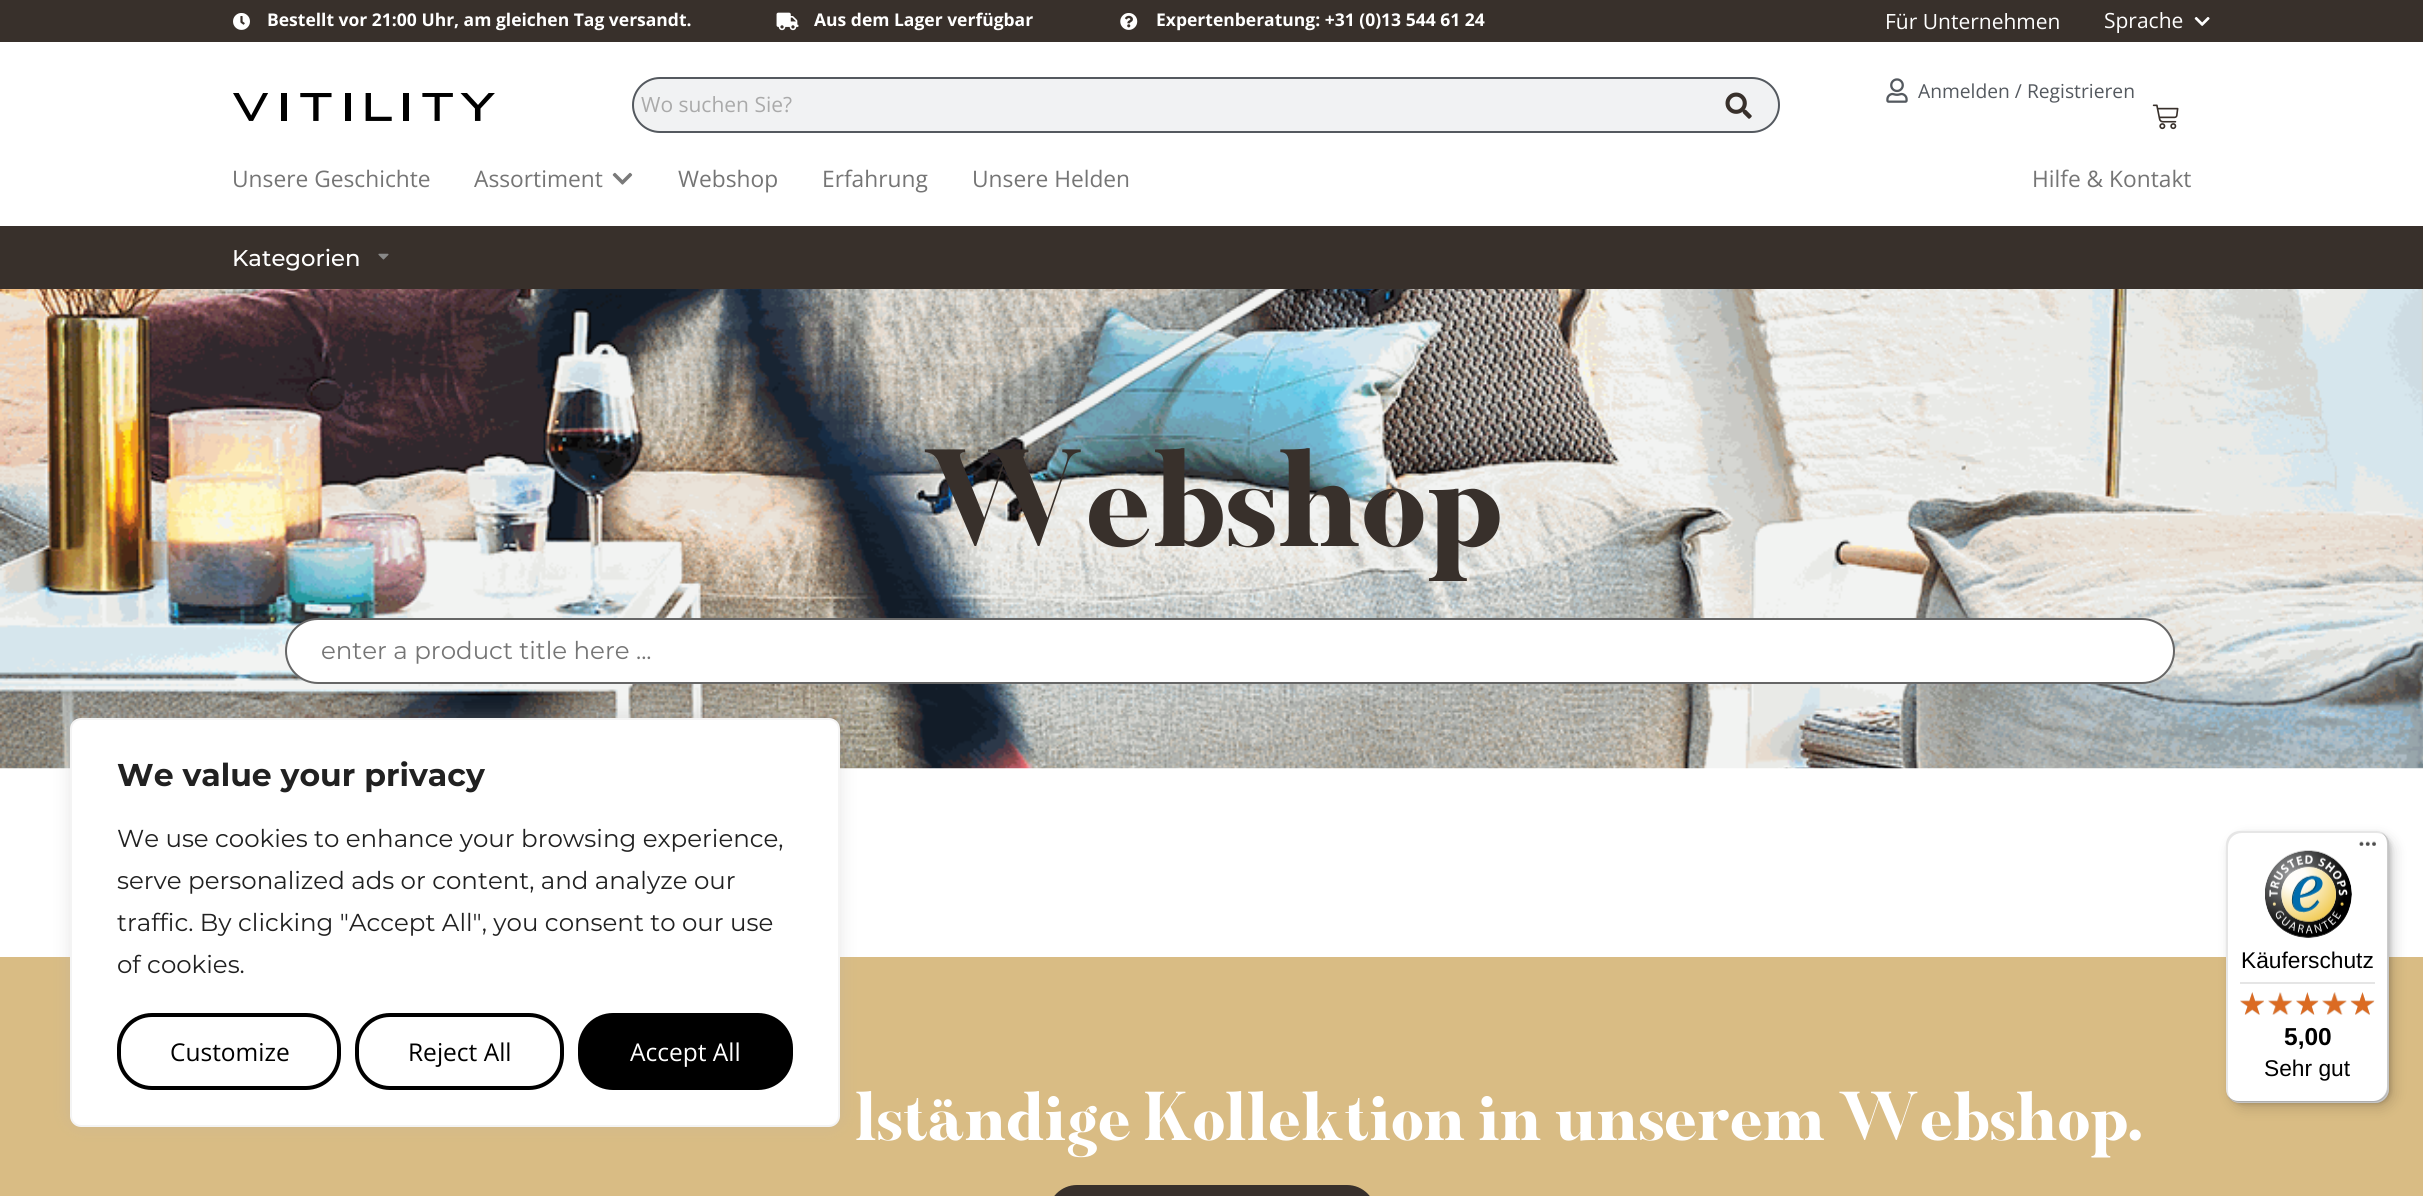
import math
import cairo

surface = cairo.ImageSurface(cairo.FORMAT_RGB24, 2423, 1196)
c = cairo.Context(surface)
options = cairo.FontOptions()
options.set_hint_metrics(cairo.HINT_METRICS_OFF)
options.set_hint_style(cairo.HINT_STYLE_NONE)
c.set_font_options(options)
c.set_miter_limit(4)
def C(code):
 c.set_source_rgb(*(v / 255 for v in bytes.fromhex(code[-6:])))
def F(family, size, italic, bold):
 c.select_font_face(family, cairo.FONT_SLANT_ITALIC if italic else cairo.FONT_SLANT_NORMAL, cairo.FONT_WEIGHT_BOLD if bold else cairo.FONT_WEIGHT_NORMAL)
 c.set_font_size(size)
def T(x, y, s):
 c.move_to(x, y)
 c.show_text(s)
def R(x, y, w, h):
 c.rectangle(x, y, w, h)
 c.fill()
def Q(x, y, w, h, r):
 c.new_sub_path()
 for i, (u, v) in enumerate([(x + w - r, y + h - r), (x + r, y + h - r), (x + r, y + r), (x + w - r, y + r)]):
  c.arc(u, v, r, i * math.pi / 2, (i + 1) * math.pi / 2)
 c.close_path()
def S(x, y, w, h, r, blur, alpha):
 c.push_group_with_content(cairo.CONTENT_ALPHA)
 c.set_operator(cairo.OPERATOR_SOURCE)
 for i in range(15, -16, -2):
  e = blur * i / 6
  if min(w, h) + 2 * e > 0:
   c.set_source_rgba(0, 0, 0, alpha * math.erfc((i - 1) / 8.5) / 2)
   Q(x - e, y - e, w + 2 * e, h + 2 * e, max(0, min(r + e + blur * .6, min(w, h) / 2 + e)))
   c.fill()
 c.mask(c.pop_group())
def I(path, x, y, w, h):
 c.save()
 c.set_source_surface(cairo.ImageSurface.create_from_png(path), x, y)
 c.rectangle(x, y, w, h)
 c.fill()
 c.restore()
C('ffffff')
c.paint()
C('38302b')
R(0,0,2423,42)
I('1.png',233,13,17,17)
F('Open Sans',17.5,0,1)
C('ffffff')
T(267,26,'Bestellt vor 21:00 Uhr, am gleichen Tag versandt.')
I('2.png',776,12,23,19)
T(814,26,'Aus dem Lager verfügbar')
I('3.png',1120,13,18,17)
T(1156,26,'Expertenberatung: +31 (0)13 544 61 24')
F('Open Sans',21,0,0)
T(1885,29,'Für Unternehmen')
T(2104,28,'Sprache')
I('4.png',2194,17,16,9)
I('5.png',233,93,262,28)
C('f1f2f3')
Q(633,78,1146,54,27)
c.fill_preserve()
C('54595f')
c.stroke()
C('aaaaaa')
T(641,112,'Wo suchen Sie?')
I('6.png',1725,92,27,27)
I('7.png',1886,78,22,25)
F('Open Sans',19.25,0,0)
C('54595f')
T(1918,98,'Anmelden / Registrieren')
I('8.png',2152,104,27,26)
F('Open Sans',22.75,0,0)
C('757575')
T(232,187,'Unsere Geschichte')
T(474,187,'Assortiment')
I('9.png',612,172,21,13)
T(678,187,'Webshop')
T(822,187,'Erfahrung')
T(972,187,'Unsere Helden')
T(2032,187,'Hilfe & Kontakt')
C('38302b')
R(0,226,2423,63)
F('Montserrat Medium',22.75,0,0)
C('ffffff')
T(232,266,'Kategorien')
I('10.png',378,253,11,7)
I('11.png',0,289,2423,480)
F('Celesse',140,0,0)
C('38302b')
T(922,546,'Webshop')
C('ffffff')
Q(286,619,1888,64,32)
c.fill_preserve()
C('666666')
c.stroke()
F('Montserrat',24.5,0,0)
C('757575')
T(321,659,'enter a product title here ...')
C('d9bc84')
R(0,957,2423,239)
C('acabab')
S(70,716,770,409,11,9,.3)
C('ffffff')
Q(71,719,768,407,10)
c.fill_preserve()
C('f4f4f4')
c.stroke()
F('Montserrat',31.5,0,1)
C('212121')
T(117,786,'We value your privacy')
F('Montserrat',24.5,0,0)
T(117,847,'We use cookies to enhance your browsing experience,')
T(117,889,'serve personalized ads or content, and analyze our')
T(117,931,'traffic. By clicking "Accept All", you consent to our use')
T(117,973,'of cookies.')
Q(119,1015,220,73,33)
C('000000')
c.set_line_width(4)
c.stroke()
F('Open Sans',24.5,0,0)
T(170,1061,'Customize')
Q(357,1015,205,73,33)
c.stroke()
T(408,1061,'Reject All')
Q(580,1015,211,73,33)
c.fill_preserve()
c.stroke()
C('ffffff')
T(630,1061,'Accept All')
C('000000')
S(2231,837,163,271,14,7,.15)
S(2228,833,163,271,14,2,.15)
C('ffffff')
Q(2226,831,163,272,14)
c.fill()
c.set_source_rgba(0,0,0,0.1)
c.new_path()
c.move_to(2242,833)
c.line_to(2376,833)
c.curve_to(2381,833,2385,835,2388,839)
c.curve_to(2385,834,2381,831,2375,831)
c.line_to(2240,831)
c.curve_to(2232,831,2226,837,2226,845)
c.line_to(2226,1089)
c.curve_to(2226,1095,2229,1099,2234,1102)
c.curve_to(2230,1099,2228,1095,2228,1090)
c.line_to(2228,847)
c.curve_to(2228,839,2234,833,2242,833)
c.close_path()
c.fill()
c.set_source_rgba(0,0,0,0.2)
c.new_path()
c.move_to(2228,1096)
c.curve_to(2230,1100,2235,1103,2240,1103)
c.line_to(2375,1103)
c.curve_to(2383,1103,2389,1097,2389,1089)
c.line_to(2389,845)
c.curve_to(2389,839,2386,835,2381,832)
c.curve_to(2385,835,2387,839,2387,844)
c.line_to(2387,1087)
c.curve_to(2387,1094,2381,1101,2373,1101)
c.line_to(2238,1101)
c.curve_to(2234,1101,2231,1099,2228,1096)
c.close_path()
c.fill()
c.set_source_rgba(0.196,0.196,0.196,0.2)
c.new_path()
c.move_to(2227,1095)
c.curve_to(2230,1100,2234,1103,2240,1103)
c.line_to(2375,1103)
c.curve_to(2383,1103,2389,1097,2389,1089)
c.line_to(2389,845)
c.curve_to(2389,840,2387,836,2383,834)
c.curve_to(2386,836,2388,840,2388,844)
c.line_to(2388,1087)
c.curve_to(2388,1095,2381,1101,2374,1101)
c.line_to(2239,1101)
c.curve_to(2234,1101,2230,1099,2227,1095)
c.close_path()
c.fill()
c.set_source_rgba(1,1,1,0.3)
c.new_path()
c.move_to(2229,1097)
c.curve_to(2231,1101,2235,1103,2240,1103)
c.line_to(2375,1103)
c.curve_to(2383,1103,2389,1097,2389,1089)
c.line_to(2389,845)
c.curve_to(2389,840,2387,836,2384,834)
c.curve_to(2386,837,2388,840,2388,844)
c.line_to(2388,1088)
c.curve_to(2388,1095,2382,1102,2374,1102)
c.line_to(2239,1102)
c.curve_to(2235,1102,2231,1100,2229,1097)
c.close_path()
c.fill()
I('12.png',2359,841,17,5)
I('13.png',2265,850,87,88)
F('Liberation Sans',22.75,0,0)
C('000000')
T(2241,968,'Käuferschutz')
C('e5e5e5')
R(2240,982,135,2)
I('14.png',2240,992,24,23)
I('15.png',2268,992,24,23)
I('16.png',2296,992,23,23)
I('17.png',2322,992,25,23)
I('18.png',2351,992,23,23)
I('19.png',2240,992,24,23)
I('20.png',2268,992,25,23)
I('21.png',2296,992,23,23)
I('22.png',2322,992,25,23)
I('23.png',2350,992,25,23)
F('Liberation Sans',24.5,0,1)
C('000000')
T(2284,1045,'5,00')
F('Liberation Sans',22.75,0,0)
T(2264,1076,'Sehr gut')
F('Celesse',70,0,0)
C('ffffff')
T(855,1140,'lständige Kollektion in unserem Webshop.')
C('38302b')
Q(1048,1185,328,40,29)
c.fill()
surface.write_to_png('o.png')
